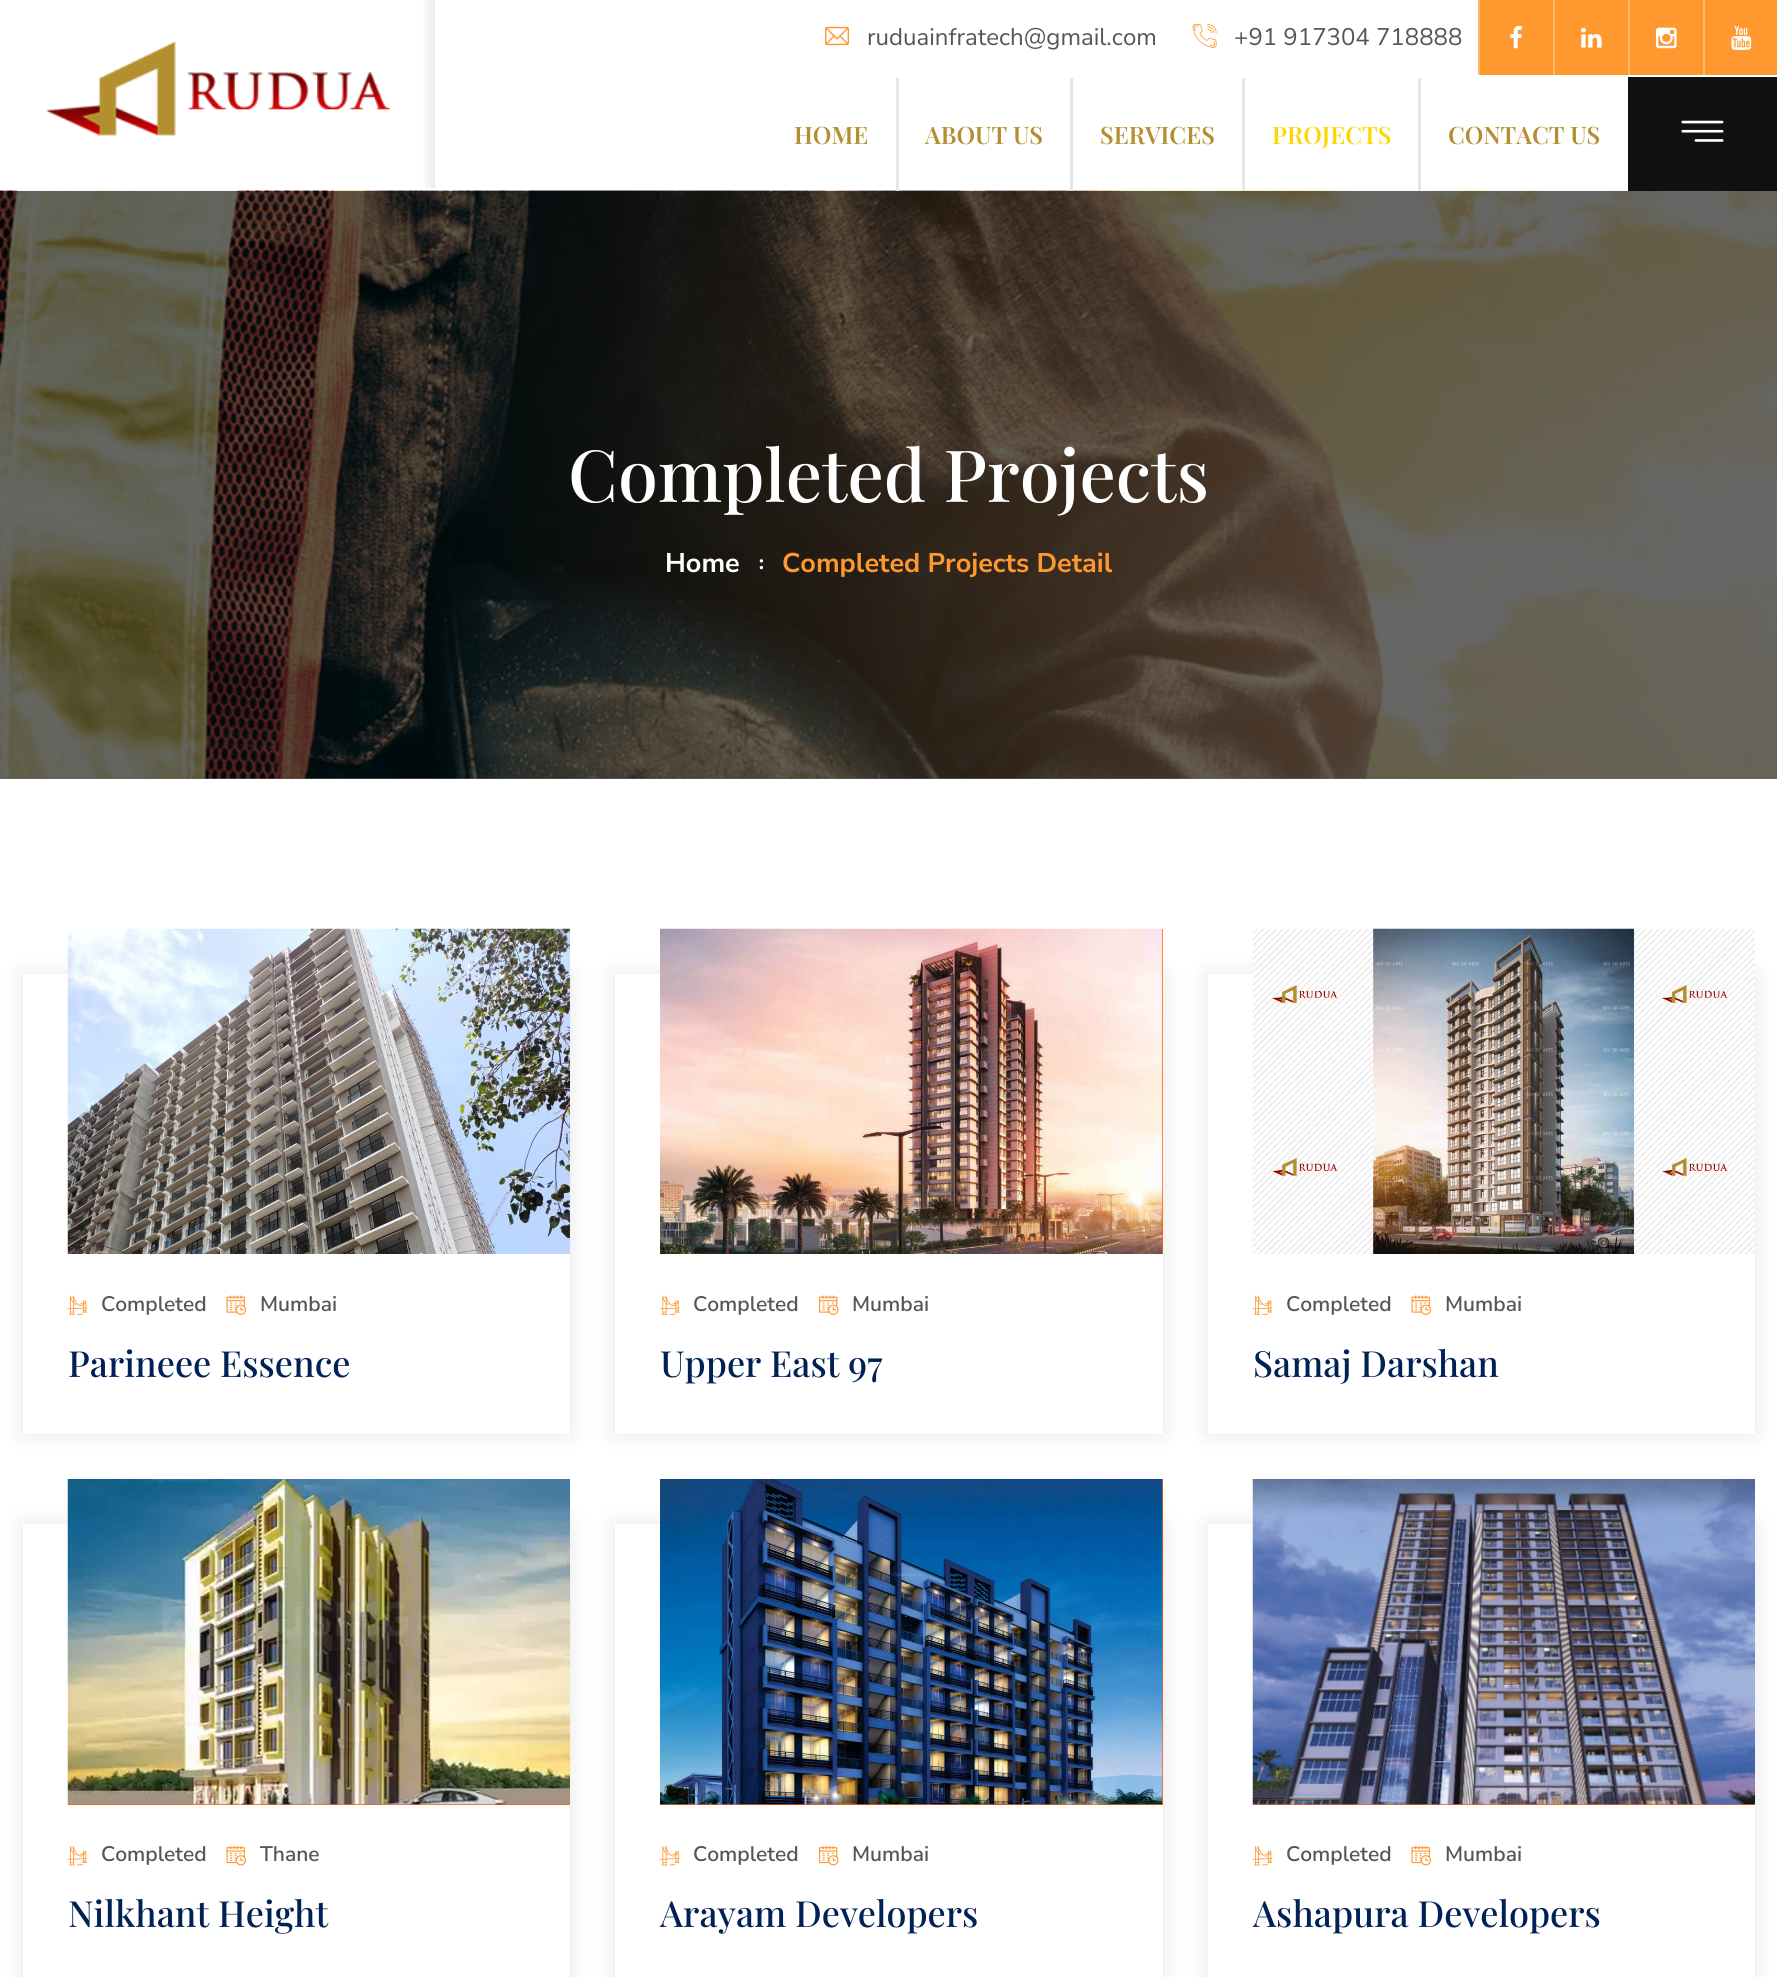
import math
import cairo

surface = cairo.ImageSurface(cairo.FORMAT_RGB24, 1777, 1977)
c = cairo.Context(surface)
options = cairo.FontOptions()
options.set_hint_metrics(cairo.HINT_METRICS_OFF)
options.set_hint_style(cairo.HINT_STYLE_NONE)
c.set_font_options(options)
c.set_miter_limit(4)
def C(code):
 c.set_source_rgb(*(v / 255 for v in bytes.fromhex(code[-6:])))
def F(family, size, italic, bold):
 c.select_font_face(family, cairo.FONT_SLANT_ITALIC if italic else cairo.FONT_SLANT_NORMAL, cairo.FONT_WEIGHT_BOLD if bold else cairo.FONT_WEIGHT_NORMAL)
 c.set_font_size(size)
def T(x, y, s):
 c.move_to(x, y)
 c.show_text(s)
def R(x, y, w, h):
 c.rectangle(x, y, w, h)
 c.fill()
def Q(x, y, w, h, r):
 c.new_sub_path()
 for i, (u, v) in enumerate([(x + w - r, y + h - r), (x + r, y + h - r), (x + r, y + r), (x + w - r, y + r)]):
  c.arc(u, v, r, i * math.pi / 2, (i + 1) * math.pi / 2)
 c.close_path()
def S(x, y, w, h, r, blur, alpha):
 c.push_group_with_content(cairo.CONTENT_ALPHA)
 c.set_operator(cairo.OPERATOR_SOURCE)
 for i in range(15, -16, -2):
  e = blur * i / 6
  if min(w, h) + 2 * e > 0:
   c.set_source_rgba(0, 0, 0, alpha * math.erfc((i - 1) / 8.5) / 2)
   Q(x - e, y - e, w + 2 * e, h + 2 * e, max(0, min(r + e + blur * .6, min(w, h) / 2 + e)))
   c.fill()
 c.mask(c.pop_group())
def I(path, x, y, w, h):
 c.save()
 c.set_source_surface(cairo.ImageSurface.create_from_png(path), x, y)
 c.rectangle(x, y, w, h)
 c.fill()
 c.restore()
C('ffffff')
c.paint()
C('666666')
R(0,778,1777,1)
I('1.png',825,26,24,20)
F('Nunito Sans',24,0,0)
C('555555')
T(867,45,'ruduainfratech@gmail.com')
I('2.png',1192,24,25,24)
T(1234,45,'+91 917304 718888')
C('fe982f')
R(1480,0,73,75)
C('feb76d')
R(1478,0,2,75)
I('3.png',1510,25,12,24)
C('fe982f')
R(1555,0,73,75)
C('feb76d')
R(1553,0,2,75)
I('4.png',1581,27,21,21)
C('fe982f')
R(1630,0,73,75)
C('feb76d')
R(1628,0,2,75)
I('5.png',1656,27,21,22)
C('fe982f')
R(1705,0,72,75)
C('feb76d')
R(1703,0,2,75)
I('6.png',1731,25,21,25)
gradient = cairo.LinearGradient(0,94,435,94)
gradient.add_color_stop_rgba(.97,0.996,0.996,0.996,1)
gradient.add_color_stop_rgba(1,0.925,0.922,0.922,1)
c.set_source(gradient)
R(423,0,12,188)
I('7.png',46,42,344,94)
I('9.png',0,190,1777,589)
C('e6e6e6')
R(896,78,3,113)
F('Playfair Display SemiBold',24,0,0)
C('b38f2f')
T(794,144,'HOME')
C('e6e6e6')
R(1070,78,3,113)
C('b38f2f')
T(925,144,'ABOUT US')
C('e6e6e6')
R(1242,78,3,113)
C('b38f2f')
T(1100,144,'SERVICES')
C('e6e6e6')
R(1418,78,3,113)
C('ffd700')
T(1272,144,'PROJECTS')
C('b38f2f')
T(1448,144,'CONTACT US')
C('111111')
R(1628,77,149,114)
I('8.png',1681,120,43,22)
F('Playfair Display Medium',72,0,0)
C('ffffff')
T(568,502,'Completed Projects')
F('Nunito Sans',27,0,1)
T(665,572,'Home')
F('Liberation Serif',21,0,1)
T(758,569,':')
F('Nunito Sans',27,0,1)
C('fe982f')
T(782,572,'Completed Projects Detail')
c.save()
c.set_fill_rule(cairo.FILL_RULE_EVEN_ODD)
c.new_path()
c.move_to(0,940)
c.line_to(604,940)
c.line_to(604,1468)
c.line_to(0,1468)
c.close_path()
c.move_to(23,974)
c.line_to(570,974)
c.line_to(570,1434)
c.line_to(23,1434)
c.close_path()
c.clip()
C('000000')
S(23,974,547,460,0,11,.1)
c.restore()
I('10.png',67,928,503,326)
I('11.png',67,1295,20,20)
F('Nunito Sans SemiBold',21,0,0)
C('555555')
T(101,1311,'Completed')
I('12.png',226,1295,20,20)
T(260,1311,'Mumbai')
F('Playfair Display Medium',36,0,0)
C('002155')
T(68,1377,'Parineee Essence')
C('000000')
S(615,974,548,460,0,11,.1)
C('ffffff')
R(615,974,548,460)
C('fd5d14')
R(1162,929,1,325)
I('13.png',660,928,503,326)
I('14.png',660,1295,20,20)
F('Nunito Sans SemiBold',21,0,0)
C('555555')
T(693,1311,'Completed')
I('15.png',819,1295,20,20)
T(852,1311,'Mumbai')
F('Playfair Display Medium',36,0,0)
C('002155')
T(660,1377,'Upper East 97')
c.save()
c.set_fill_rule(cairo.FILL_RULE_EVEN_ODD)
c.new_path()
c.move_to(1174,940)
c.line_to(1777,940)
c.line_to(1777,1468)
c.line_to(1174,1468)
c.close_path()
c.move_to(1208,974)
c.line_to(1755,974)
c.line_to(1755,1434)
c.line_to(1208,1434)
c.close_path()
c.clip()
C('000000')
S(1208,974,547,460,0,11,.1)
c.restore()
I('16.png',1252,928,503,326)
I('11.png',1252,1295,20,20)
F('Nunito Sans SemiBold',21,0,0)
C('555555')
T(1286,1311,'Completed')
I('12.png',1411,1295,20,20)
T(1445,1311,'Mumbai')
F('Playfair Display Medium',36,0,0)
C('002155')
T(1253,1377,'Samaj Darshan')
c.save()
c.set_fill_rule(cairo.FILL_RULE_EVEN_ODD)
c.new_path()
c.move_to(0,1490)
c.line_to(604,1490)
c.line_to(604,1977)
c.line_to(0,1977)
c.close_path()
c.move_to(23,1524)
c.line_to(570,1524)
c.line_to(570,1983)
c.line_to(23,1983)
c.close_path()
c.clip()
C('000000')
S(23,1524,547,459,0,11,.1)
c.restore()
C('fd5d14')
R(68,1804,502,1)
I('17.png',67,1479,503,326)
I('18.png',67,1846,20,20)
F('Nunito Sans SemiBold',21,0,0)
C('555555')
T(101,1861,'Completed')
I('19.png',226,1846,20,20)
T(260,1861,'Thane')
F('Playfair Display Medium',36,0,0)
C('002155')
T(68,1927,'Nilkhant Height')
C('000000')
S(615,1524,548,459,0,11,.1)
C('ffffff')
R(615,1524,548,453)
C('fd5d14')
R(660,1479,503,326)
I('20.png',660,1479,503,326)
I('21.png',660,1846,20,20)
F('Nunito Sans SemiBold',21,0,0)
C('555555')
T(693,1861,'Completed')
I('22.png',819,1846,20,20)
T(852,1861,'Mumbai')
F('Playfair Display Medium',36,0,0)
C('002155')
T(660,1927,'Arayam Developers')
c.save()
c.set_fill_rule(cairo.FILL_RULE_EVEN_ODD)
c.new_path()
c.move_to(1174,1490)
c.line_to(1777,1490)
c.line_to(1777,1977)
c.line_to(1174,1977)
c.close_path()
c.move_to(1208,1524)
c.line_to(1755,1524)
c.line_to(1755,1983)
c.line_to(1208,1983)
c.close_path()
c.clip()
C('000000')
S(1208,1524,547,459,0,11,.1)
c.restore()
C('fd5d14')
R(1253,1804,502,1)
I('23.png',1252,1479,503,326)
I('18.png',1252,1846,20,20)
F('Nunito Sans SemiBold',21,0,0)
C('555555')
T(1286,1861,'Completed')
I('19.png',1411,1846,20,20)
T(1445,1861,'Mumbai')
F('Playfair Display Medium',36,0,0)
C('002155')
T(1253,1927,'Ashapura Developers')
surface.write_to_png('o.png')
